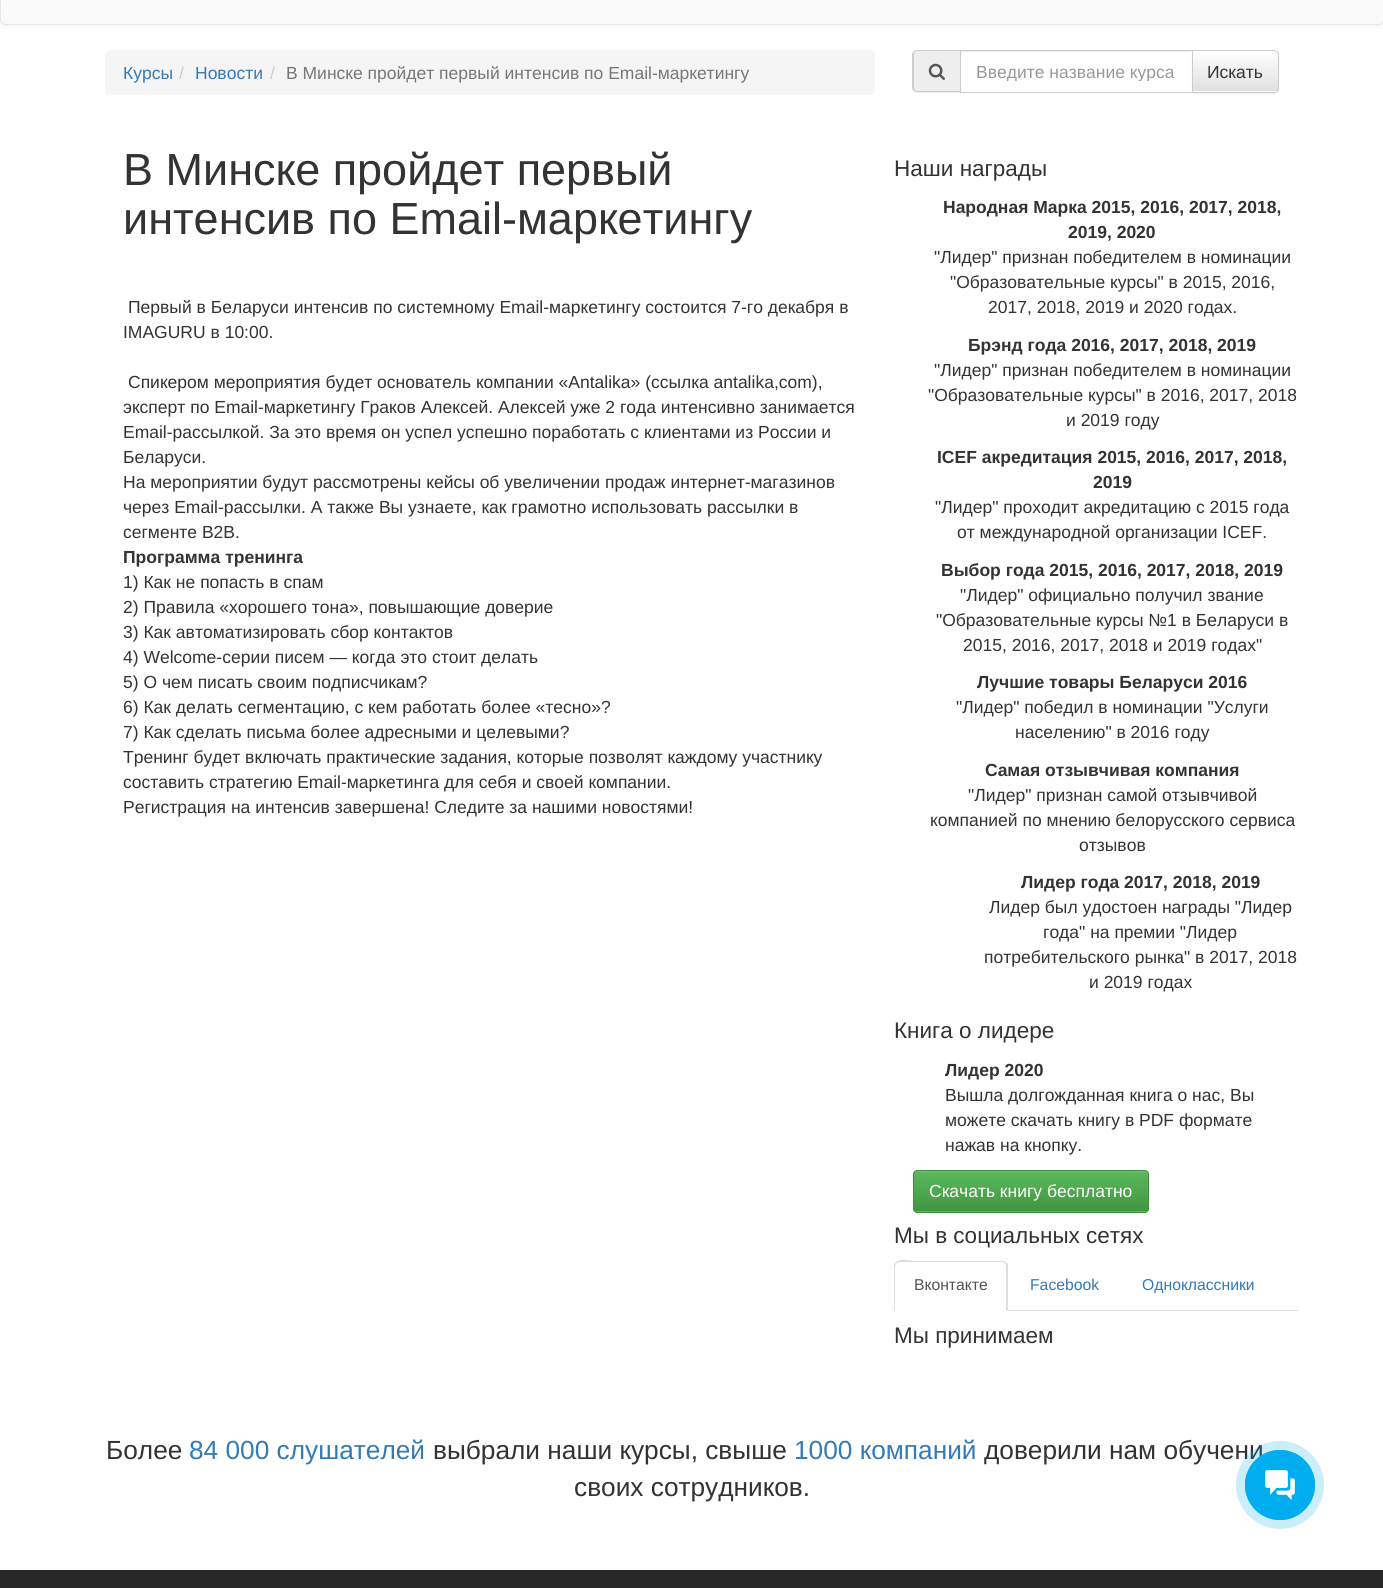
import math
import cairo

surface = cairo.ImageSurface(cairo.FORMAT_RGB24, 1383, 1588)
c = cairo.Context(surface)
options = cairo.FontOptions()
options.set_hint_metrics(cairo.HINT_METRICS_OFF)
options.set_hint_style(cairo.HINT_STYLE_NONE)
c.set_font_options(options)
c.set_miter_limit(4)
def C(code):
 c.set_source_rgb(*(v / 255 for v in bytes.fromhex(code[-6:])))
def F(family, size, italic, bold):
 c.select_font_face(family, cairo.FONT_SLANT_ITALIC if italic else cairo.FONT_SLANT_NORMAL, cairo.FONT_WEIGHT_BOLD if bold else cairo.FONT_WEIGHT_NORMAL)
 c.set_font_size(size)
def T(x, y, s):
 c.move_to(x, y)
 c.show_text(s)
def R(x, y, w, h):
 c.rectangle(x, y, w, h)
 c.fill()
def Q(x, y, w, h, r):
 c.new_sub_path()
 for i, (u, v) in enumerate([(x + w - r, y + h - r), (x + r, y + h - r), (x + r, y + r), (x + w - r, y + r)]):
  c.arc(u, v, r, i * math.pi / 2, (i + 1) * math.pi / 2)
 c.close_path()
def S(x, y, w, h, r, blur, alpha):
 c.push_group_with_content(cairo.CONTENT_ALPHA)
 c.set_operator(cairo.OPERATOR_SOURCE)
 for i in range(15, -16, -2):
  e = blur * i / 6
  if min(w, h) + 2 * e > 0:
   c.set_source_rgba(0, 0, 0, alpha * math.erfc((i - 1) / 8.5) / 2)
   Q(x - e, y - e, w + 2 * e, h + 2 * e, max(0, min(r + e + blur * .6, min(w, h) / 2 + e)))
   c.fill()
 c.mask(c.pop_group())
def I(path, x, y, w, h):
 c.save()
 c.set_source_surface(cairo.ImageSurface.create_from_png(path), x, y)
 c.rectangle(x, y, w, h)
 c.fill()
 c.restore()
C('ffffff')
c.paint()
C('000000')
S(0,-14,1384,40,5,3,.07)
c.save()
Q(0,-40,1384,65,5)
c.clip()
gradient = cairo.LinearGradient(692,-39,692,24)
gradient.add_color_stop_rgba(0,1,1,1,1)
gradient.add_color_stop_rgba(1,0.973,0.973,0.973,1)
c.set_source(gradient)
R(0,0,1383,24)
c.restore()
Q(.5,-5.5,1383,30,4.5)
C('e7e7e7')
c.set_line_width(1)
c.stroke()
C('f5f5f5')
Q(105,50,770,45,5)
c.fill()
F('Liberation Sans',17.5,0,0)
C('337ab7')
T(123,79,'Курсы')
C('cccccc')
T(179,79,'/')
C('337ab7')
T(195,79,'Новости')
C('cccccc')
T(270,79,'/')
C('777777')
T(286,79,'В Минске пройдет первый интенсив по Email-маркетингу')
C('eeeeee')
c.new_path()
c.move_to(918,50)
c.line_to(960,50)
c.line_to(960,93)
c.line_to(918,93)
c.curve_to(915,93,913,91,913,88)
c.line_to(913,55)
c.curve_to(913,52,915,50,918,50)
c.close_path()
c.fill()
C('cccccc')
c.set_fill_rule(cairo.FILL_RULE_EVEN_ODD)
c.new_path()
c.move_to(918,50)
c.line_to(960,50)
c.line_to(960,92)
c.line_to(918,92)
c.curve_to(915,92,912,90,912,88)
c.line_to(912,55)
c.curve_to(912,52,915,50,918,50)
c.close_path()
c.move_to(918,51)
c.line_to(960,51)
c.line_to(960,91)
c.line_to(918,91)
c.curve_to(915,91,914,90,914,88)
c.line_to(914,55)
c.curve_to(914,53,915,51,918,51)
c.close_path()
c.fill()
I('1.png',928,63,17,17)
C('000000')
S(1191,51,88,43,5,.5,.07)
C('ffffff')
c.new_path()
c.move_to(1191,50)
c.line_to(1274,50)
c.curve_to(1277,50,1279,52,1279,55)
c.line_to(1279,88)
c.curve_to(1279,91,1277,93,1274,93)
c.line_to(1191,93)
c.close_path()
c.fill()
c.save()
c.set_fill_rule(cairo.FILL_RULE_WINDING)
c.new_path()
c.move_to(1191,50)
c.line_to(1274,50)
c.curve_to(1277,50,1279,52,1279,55)
c.line_to(1279,88)
c.curve_to(1279,91,1277,93,1274,93)
c.line_to(1191,93)
c.close_path()
c.clip()
gradient = cairo.LinearGradient(1235,51,1235,91)
gradient.add_color_stop_rgba(0,1,1,1,1)
gradient.add_color_stop_rgba(1,0.878,0.878,0.878,1)
c.set_source(gradient)
R(1193,51,86,40)
c.restore()
c.new_path()
c.move_to(1191.5,50.5)
c.line_to(1274,50.5)
c.curve_to(1276.5,50.5,1278.5,52.5,1278.5,55)
c.line_to(1278.5,88)
c.curve_to(1278.5,90.5,1276.5,92.5,1274,92.5)
c.line_to(1191.5,92.5)
c.close_path()
C('cccccc')
c.stroke()
C('ffffff')
R(1191,51,1,41)
C('ececec')
R(961,51,230,1)
c.rectangle(960.5,50.5,232,42)
C('cccccc')
c.stroke()
c.save()
c.set_fill_rule(cairo.FILL_RULE_WINDING)
c.rectangle(976,61,200,20)
c.clip()
C('999999')
T(976,78,'Введите название курса')
c.restore()
C('333333')
T(1207,78,'Искать')
F('Liberation Sans',45,0,0)
T(123,185,'В Минске пройдет первый')
T(123,234,'интенсив по Email-маркетингу')
F('Liberation Sans',17.5,0,0)
T(128,313,'Первый в Беларуси интенсив по системному Email-маркетингу состоится 7-го декабря в')
T(123,338,'IMAGURU в 10:00.')
T(128,388,'Спикером мероприятия будет основатель компании «Antalika» (ссылка antalika,com),')
T(123,413,'эксперт по Email-маркетингу Граков Алексей. Алексей уже 2 года интенсивно занимается')
T(123,438,'Email-рассылкой. За это время он успел успешно поработать с клиентами из России и')
T(123,463,'Беларуси.')
T(123,488,'На мероприятии будут рассмотрены кейсы об увеличении продаж интернет-магазинов')
T(123,513,'через Email-рассылки. А также Вы узнаете, как грамотно использовать рассылки в')
T(123,538,'сегменте B2B.')
F('Liberation Sans',17.5,0,1)
T(123,563,'Программа тренинга')
F('Liberation Sans',17.5,0,0)
T(123,588,'1) Как не попасть в спам')
T(123,613,'2) Правила «хорошего тона», повышающие доверие')
T(123,638,'3) Как автоматизировать сбор контактов')
T(123,663,'4) Welcome-серии писем — когда это стоит делать')
T(123,688,'5) О чем писать своим подписчикам?')
T(123,713,'6) Как делать сегментацию, с кем работать более «тесно»?')
T(123,738,'7) Как сделать письма более адресными и целевыми?')
T(123,763,'Тренинг будет включать практические задания, которые позволят каждому участнику')
T(123,788,'составить стратегию Email-маркетинга для себя и своей компании.')
T(123,813,'Регистрация на интенсив завершена! Следите за нашими новостями!')
F('Liberation Sans',22.5,0,0)
T(894,176,'Наши награды')
F('Liberation Sans',17.5,0,1)
T(943,213,'Народная Марка 2015, 2016, 2017, 2018,')
T(1068,238,'2019, 2020')
F('Liberation Sans',17.5,0,0)
T(934,263,'"Лидер" признан победителем в номинации')
T(950,288,'"Образовательные курсы" в 2015, 2016,')
T(988,313,'2017, 2018, 2019 и 2020 годах.')
F('Liberation Sans',17.5,0,1)
T(968,351,'Брэнд года 2016, 2017, 2018, 2019')
F('Liberation Sans',17.5,0,0)
T(934,376,'"Лидер" признан победителем в номинации')
T(928,401,'"Образовательные курсы" в 2016, 2017, 2018')
T(1066,426,'и 2019 году')
F('Liberation Sans',17.5,0,1)
T(937,463,'ICEF акредитация 2015, 2016, 2017, 2018,')
T(1093,488,'2019')
F('Liberation Sans',17.5,0,0)
T(935,513,'"Лидер" проходит акредитацию с 2015 года')
T(957,538,'от международной организации ICEF.')
F('Liberation Sans',17.5,0,1)
T(941,576,'Выбор года 2015, 2016, 2017, 2018, 2019')
F('Liberation Sans',17.5,0,0)
T(960,601,'"Лидер" официально получил звание')
T(936,626,'"Образовательные курсы №1 в Беларуси в')
T(963,651,'2015, 2016, 2017, 2018 и 2019 годах"')
F('Liberation Sans',17.5,0,1)
T(977,688,'Лучшие товары Беларуси 2016')
F('Liberation Sans',17.5,0,0)
T(956,713,'"Лидер" победил в номинации "Услуги')
T(1015,738,'населению" в 2016 году')
F('Liberation Sans',17.5,0,1)
T(985,776,'Самая отзывчивая компания')
F('Liberation Sans',17.5,0,0)
T(968,801,'"Лидер" признан самой отзывчивой')
T(930,826,'компанией по мнению белорусского сервиса')
T(1079,851,'отзывов')
F('Liberation Sans',17.5,0,1)
T(1021,888,'Лидер года 2017, 2018, 2019')
F('Liberation Sans',17.5,0,0)
T(989,913,'Лидер был удостоен награды "Лидер')
T(1043,938,'года" на премии "Лидер')
T(984,963,'потребительского рынка" в 2017, 2018')
T(1089,988,'и 2019 годах')
F('Liberation Sans',22.5,0,0)
T(894,1038,'Книга о лидере')
F('Liberation Sans',17.5,0,1)
T(945,1076,'Лидер 2020')
F('Liberation Sans',17.5,0,0)
T(945,1101,'Вышла долгожданная книга о нас, Вы')
T(945,1126,'можете скачать книгу в PDF формате')
T(945,1151,'нажав на кнопку.')
C('000000')
S(913,1171,236,43,5,.5,.07)
C('5cb85c')
Q(913,1170,236,43,5)
c.fill()
c.save()
c.set_fill_rule(cairo.FILL_RULE_WINDING)
Q(913,1170,236,43,5)
c.clip()
gradient = cairo.LinearGradient(1031,1171,1031,1211)
gradient.add_color_stop_rgba(0,0.361,0.722,0.361,1)
gradient.add_color_stop_rgba(1,0.255,0.588,0.255,1)
c.set_source(gradient)
R(913,1171,236,40)
c.restore()
C('74c374')
c.set_fill_rule(cairo.FILL_RULE_WINDING)
c.new_path()
c.move_to(918,1172)
c.line_to(1144,1172)
c.curve_to(1146,1172,1148,1174,1148,1176)
c.curve_to(1148,1173,1147,1171,1144,1171)
c.line_to(918,1171)
c.curve_to(915,1171,914,1173,914,1176)
c.curve_to(914,1174,915,1172,918,1172)
c.close_path()
c.fill()
Q(913.5,1170.5,235,42,4.5)
C('3e8f3e')
c.stroke()
C('ffffff')
T(929,1197,'Скачать книгу бесплатно')
F('Liberation Sans',22.5,0,0)
C('333333')
T(894,1243,'Мы в социальных сетях')
C('dddddd')
R(1008,1310,290,1)
c.new_path()
c.move_to(899,1262)
c.curve_to(898,1262,897,1263,896,1264)
c.line_to(895,1263)
c.curve_to(900,1257,908,1261,915,1261)
c.line_to(1004,1261)
c.line_to(1006,1262)
c.line_to(1005,1263)
c.curve_to(1005,1263,1004,1262,1002,1262)
c.close_path()
c.fill()
c.new_path()
c.move_to(1008,1311)
c.line_to(1006,1310)
c.line_to(1006,1266)
c.line_to(1005,1263)
c.line_to(1006,1262)
c.line_to(1008,1264)
c.close_path()
c.fill()
c.new_path()
c.move_to(894,1311)
c.line_to(895,1310)
c.line_to(895,1266)
c.line_to(896,1264)
c.line_to(895,1263)
c.curve_to(894,1263,894,1265,894,1266)
c.close_path()
c.fill()
F('Liberation Sans',15.75,0,0)
C('555555')
T(914,1290,'Вконтакте')
C('337ab7')
T(1030,1290,'Facebook')
T(1142,1290,'Одноклассники')
F('Liberation Sans',22.5,0,0)
C('333333')
T(894,1343,'Мы принимаем')
F('Liberation Sans',26.25,0,0)
T(106,1459,'Более')
C('337ab7')
T(189,1459,'84 000 слушателей')
C('333333')
T(433,1459,'выбрали наши курсы, свыше')
C('337ab7')
T(794,1459,'1000 компаний')
C('333333')
T(984,1459,'доверили нам обучени')
T(574,1496,'своих сотрудников.')
c.set_source_rgba(0,0.682,0.937,0.2)
c.new_path()
c.arc(1280,1485,44,0,2 * math.pi)
c.fill()
c.arc(1280,1485,34.5,0,2 * math.pi)
C('00aeef')
c.stroke()
c.arc(1280,1485,35,0,2 * math.pi)
c.fill()
I('2.png',1265,1470,30,30)
C('272727')
R(0,1570,1383,18)
surface.write_to_png('o.png')
